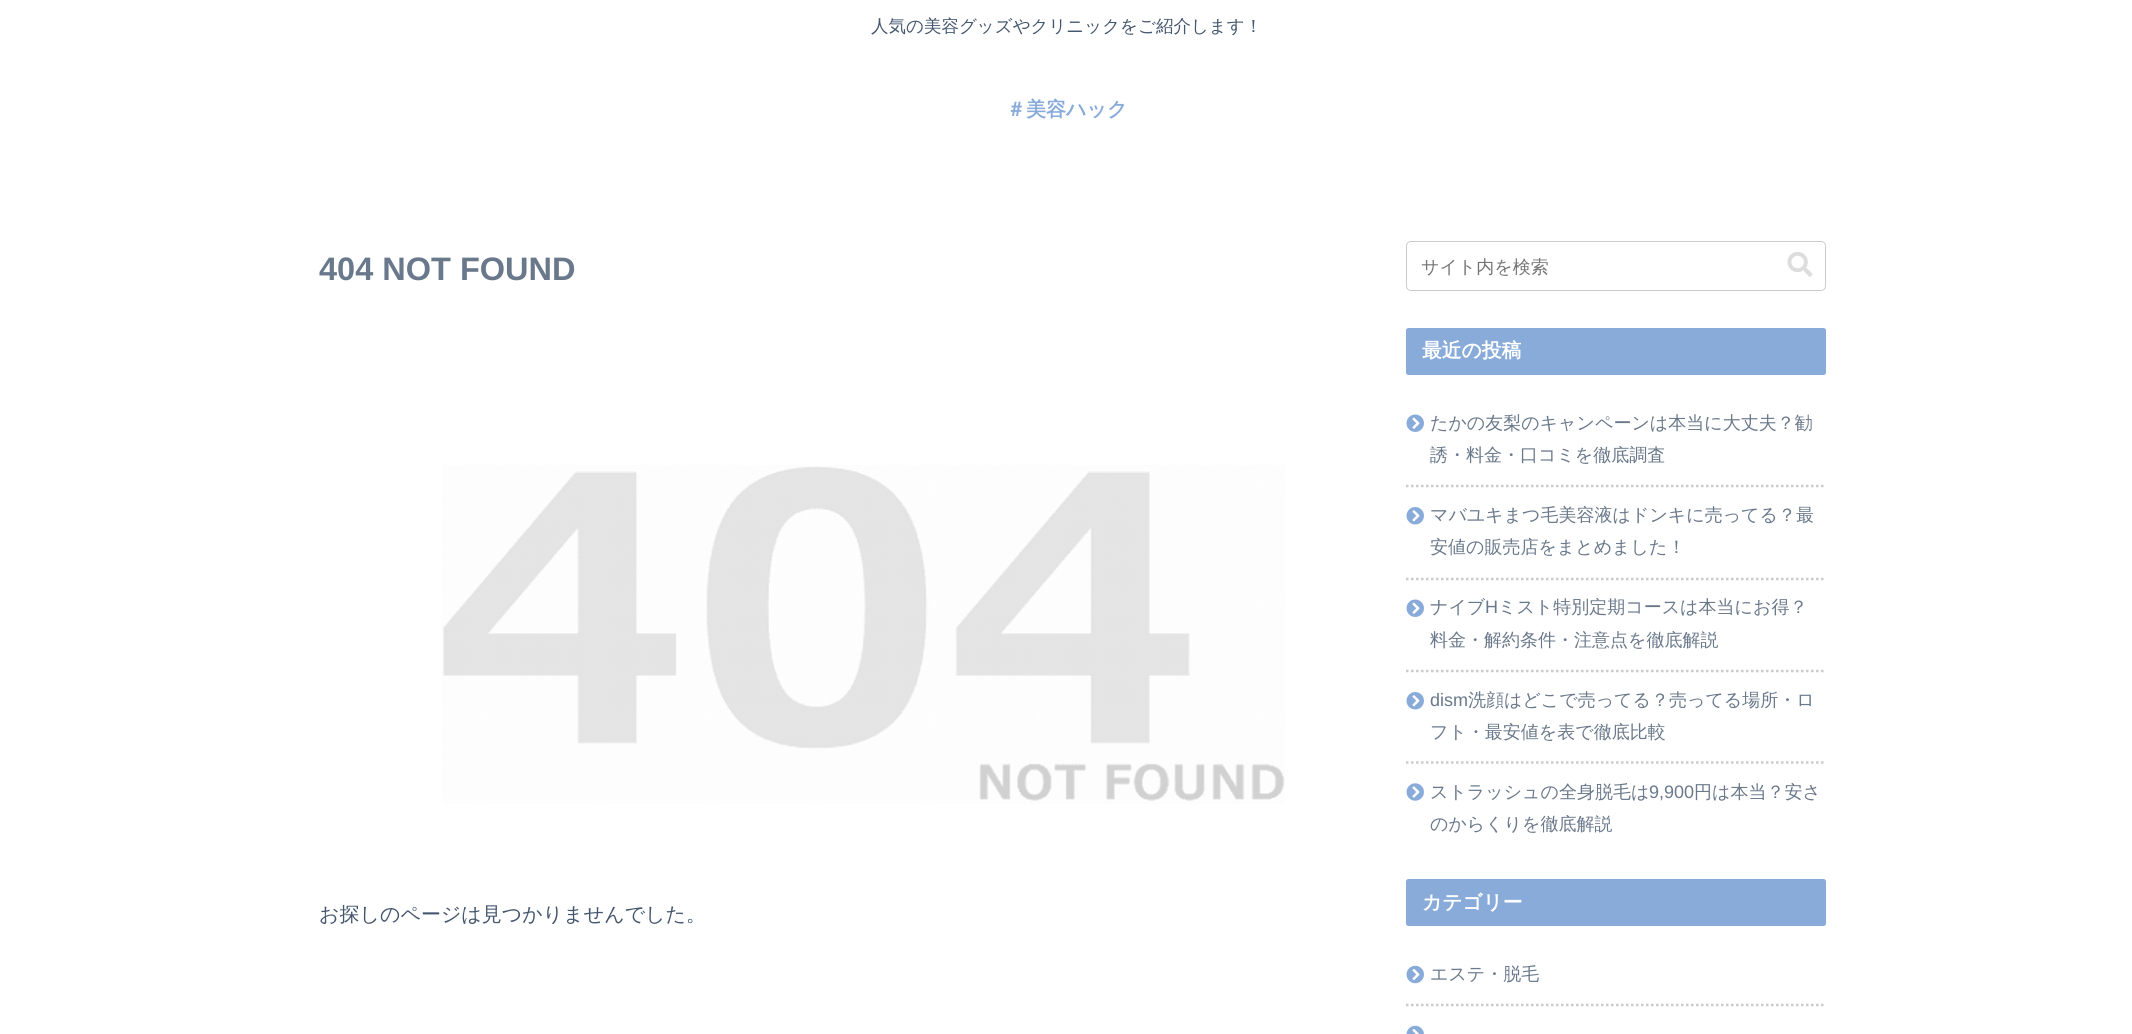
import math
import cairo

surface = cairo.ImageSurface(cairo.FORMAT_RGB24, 2132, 1034)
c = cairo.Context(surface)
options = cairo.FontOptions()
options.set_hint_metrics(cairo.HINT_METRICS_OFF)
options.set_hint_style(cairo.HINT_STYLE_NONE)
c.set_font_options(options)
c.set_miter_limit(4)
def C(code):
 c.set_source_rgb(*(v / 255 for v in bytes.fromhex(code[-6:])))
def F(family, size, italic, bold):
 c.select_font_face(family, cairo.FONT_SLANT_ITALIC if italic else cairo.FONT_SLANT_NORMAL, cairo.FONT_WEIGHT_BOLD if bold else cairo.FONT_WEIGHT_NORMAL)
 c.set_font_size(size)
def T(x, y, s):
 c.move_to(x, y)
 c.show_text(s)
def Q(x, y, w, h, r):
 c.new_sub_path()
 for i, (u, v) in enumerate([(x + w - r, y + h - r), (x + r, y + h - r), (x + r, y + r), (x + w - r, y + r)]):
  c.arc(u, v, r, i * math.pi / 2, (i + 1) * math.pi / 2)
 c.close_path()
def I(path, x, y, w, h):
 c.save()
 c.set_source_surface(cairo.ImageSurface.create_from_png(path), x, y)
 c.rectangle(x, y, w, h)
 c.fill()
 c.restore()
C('ffffff')
c.paint()
F('WenQuanYi Zen Hei Medium',17.5,0,0)
C('44566d')
T(871,32,'人気の美容グッズやクリニックをご紹介します！')
F('WenQuanYi Zen Hei',20,0,1)
C('88abda')
T(1006,116,'＃美容ハック')
F('Liberation Sans',32.5,0,1)
C('69788a')
T(319,280,'404 NOT FOUND')
I('1.png',442,465,843,339)
F('WenQuanYi Zen Hei Medium',20,0,0)
C('44566d')
T(319,921,'お探しのページは見つかりませんでした。')
Q(1406.5,241.5,419,49,4.5)
C('cccccc')
c.set_line_width(1)
c.stroke()
F('WenQuanYi Zen Hei Medium',18,0,0)
C('757575')
T(1421,273,'サイト内を検索')
I('2.png',1787,252,26,25)
C('88abda')
Q(1406,328,420,47,2.5)
c.fill()
F('WenQuanYi Zen Hei',19.75,0,1)
C('ffffff')
T(1422,357,'最近の投稿')
c.new_path()
c.move_to(1406,486)
c.line_to(1826,486)
C('cccccc')
c.set_line_width(2.5)
c.set_dash([2.5,2.5])
c.stroke()
I('3.png',1406,414,18,18)
F('WenQuanYi Zen Hei Medium',18,0,0)
C('69788a')
T(1430,429,'たかの友梨のキャンペーンは本当に大丈夫？勧')
T(1430,461,'誘・料金・口コミを徹底調査')
c.new_path()
c.move_to(1406,579)
c.line_to(1826,579)
C('cccccc')
c.stroke()
I('4.png',1406,507,18,18)
C('69788a')
T(1430,521,'マバユキまつ毛美容液はドンキに売ってる？最')
T(1430,553,'安値の販売店をまとめました！')
c.new_path()
c.move_to(1406,671)
c.line_to(1826,671)
C('cccccc')
c.stroke()
I('3.png',1406,599,18,18)
C('69788a')
T(1430,613,'ナイブ')
F('Liberation Sans',18,0,0)
T(1485,613,'H')
F('WenQuanYi Zen Hei Medium',18,0,0)
T(1498,613,'ミスト特別定期コースは本当にお得？')
T(1430,646,'料金・解約条件・注意点を徹底解説')
c.new_path()
c.move_to(1406,762.5)
c.line_to(1826,762.5)
C('cccccc')
c.stroke()
I('4.png',1406,692,18,18)
F('Liberation Sans',18,0,0)
C('69788a')
T(1430,706,'dism')
F('WenQuanYi Zen Hei Medium',18,0,0)
T(1468,706,'洗顔はどこで売ってる？売ってる場所・ロ')
T(1430,738,'フト・最安値を表で徹底比較')
I('5.png',1406,783,18,18)
T(1430,798,'ストラッシュの全身脱毛は')
F('Liberation Sans',18,0,0)
T(1649,798,'9,900')
F('WenQuanYi Zen Hei Medium',18,0,0)
T(1694,798,'円は本当？安さ')
T(1430,830,'のからくりを徹底解説')
C('88abda')
Q(1406,879,420,47,2.5)
c.fill()
F('WenQuanYi Zen Hei',19.75,0,1)
C('ffffff')
T(1422,909,'カテゴリー')
c.new_path()
c.move_to(1406,1005)
c.line_to(1826,1005)
C('cccccc')
c.stroke()
I('6.png',1406,965,18,19)
F('WenQuanYi Zen Hei Medium',18,0,0)
C('69788a')
T(1430,980,'エステ・脱毛')
I('7.png',1406,1025,18,9)
surface.write_to_png('o.png')
